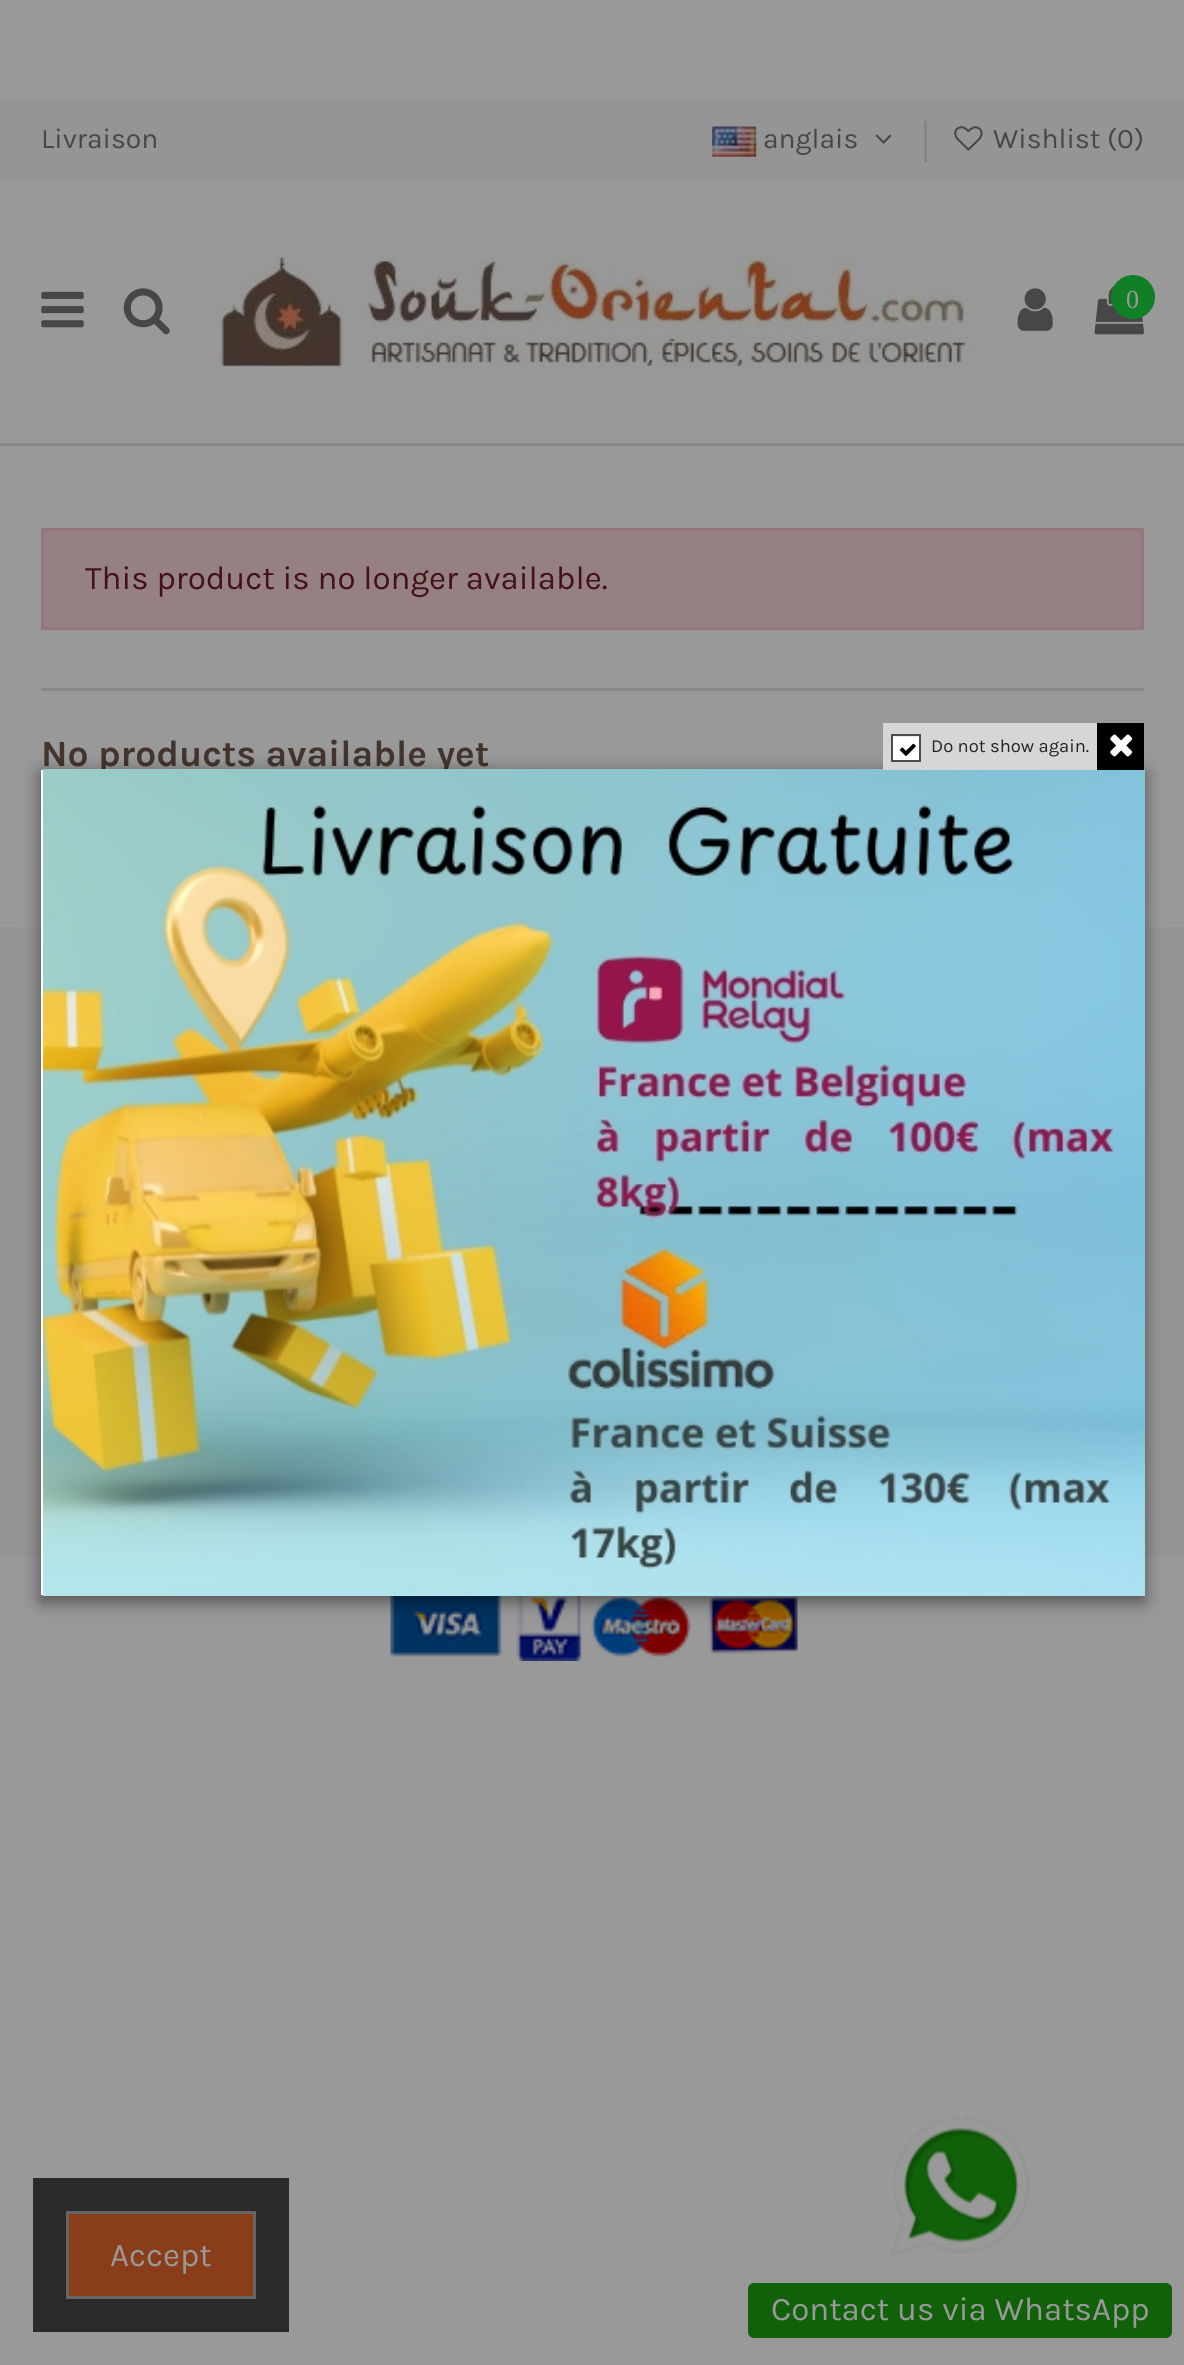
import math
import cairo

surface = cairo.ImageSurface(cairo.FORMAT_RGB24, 1184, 2365)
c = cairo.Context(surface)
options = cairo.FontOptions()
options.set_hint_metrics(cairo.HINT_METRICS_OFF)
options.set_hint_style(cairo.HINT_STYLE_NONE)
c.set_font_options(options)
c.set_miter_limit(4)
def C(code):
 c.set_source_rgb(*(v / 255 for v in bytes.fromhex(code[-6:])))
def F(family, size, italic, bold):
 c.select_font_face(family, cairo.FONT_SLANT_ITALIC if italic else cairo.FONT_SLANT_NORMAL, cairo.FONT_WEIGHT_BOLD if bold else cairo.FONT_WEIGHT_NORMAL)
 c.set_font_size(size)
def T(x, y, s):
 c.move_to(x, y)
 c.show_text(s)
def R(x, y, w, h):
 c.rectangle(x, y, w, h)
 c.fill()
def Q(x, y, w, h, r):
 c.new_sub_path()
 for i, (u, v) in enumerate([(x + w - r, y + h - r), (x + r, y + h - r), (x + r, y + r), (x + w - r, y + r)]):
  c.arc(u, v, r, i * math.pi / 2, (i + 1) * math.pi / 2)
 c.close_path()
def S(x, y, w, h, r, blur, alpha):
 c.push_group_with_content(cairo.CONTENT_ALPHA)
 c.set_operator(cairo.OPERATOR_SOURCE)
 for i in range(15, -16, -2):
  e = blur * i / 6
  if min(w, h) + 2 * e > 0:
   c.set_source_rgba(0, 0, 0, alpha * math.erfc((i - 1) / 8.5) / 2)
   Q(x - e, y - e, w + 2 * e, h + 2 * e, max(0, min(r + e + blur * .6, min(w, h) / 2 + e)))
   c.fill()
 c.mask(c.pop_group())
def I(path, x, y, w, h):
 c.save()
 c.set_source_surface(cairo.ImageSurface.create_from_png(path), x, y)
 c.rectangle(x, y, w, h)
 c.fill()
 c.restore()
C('999999')
c.paint()
C('959595')
R(0,99,1184,83)
F('Karla',28.25,0,0)
C('474747')
T(41,148,'Livraison')
I('1.png',712,126,45,31)
T(763,148,'anglais')
I('2.png',875,134,17,10)
C('858585')
R(924,121,3,41)
I('3.png',954,126,29,25)
C('474747')
T(993,148,'Wishlist (0)')
C('888888')
R(0,443,1184,3)
I('4.png',41,291,43,37)
I('5.png',123,288,47,47)
I('6.png',212,247,764,124)
I('7.png',1017,288,36,43)
I('8.png',1094,285,50,50)
C('107f26')
c.arc(1133,297,22,0,2 * math.pi)
c.fill()
F('Liberation Serif',26,0,0)
C('999999')
T(1126,308,'0')
C('958183')
c.rectangle(42.5,529.5,1100,99)
c.fill_preserve()
C('93777a')
c.set_line_width(3)
c.stroke()
F('Karla',33,0,0)
C('441116')
T(85,589,'This product is no longer available.')
C('888888')
R(41,688,1103,3)
F('Karla',37.1,0,1)
C('43352e')
T(41,766,'No products available yet')
C('959595')
R(0,927,1184,630)
I('9.png',390,1596,408,65)
I('10.png',891,2116,138,139)
C('11610a')
Q(748,2283,424,55,6)
c.fill()
F('Karla',33,0,0)
C('999999')
T(771,2320,'Contact us via WhatsApp')
C('000000')
S(41,773,1103,828,0,9,.5)
C('ffffff')
R(41,770,2,825)
I('11.png',43,769,1102,827)
C('d6d6d6')
R(883,723,214,47)
C('ffffff')
R(893,736,26,24)
C('e8e8e8')
R(894,736,25,1)
c.rectangle(892,735,28,26)
C('4f4b4b')
c.set_line_width(2)
c.stroke()
I('12.png',899,743,17,13)
F('Karla',18.4,0,0)
C('212529')
T(931,752,'Do not show again.')
C('000000')
R(1097,723,47,47)
I('13.png',1110,734,23,23)
C('2a2a2a')
R(33,2178,256,154)
C('893d18')
c.rectangle(67.5,2212.5,187,85)
c.fill_preserve()
C('656565')
c.set_line_width(3)
c.stroke()
F('Karla',33,0,0)
C('999999')
T(110,2266,'Accept')
surface.write_to_png('o.png')
